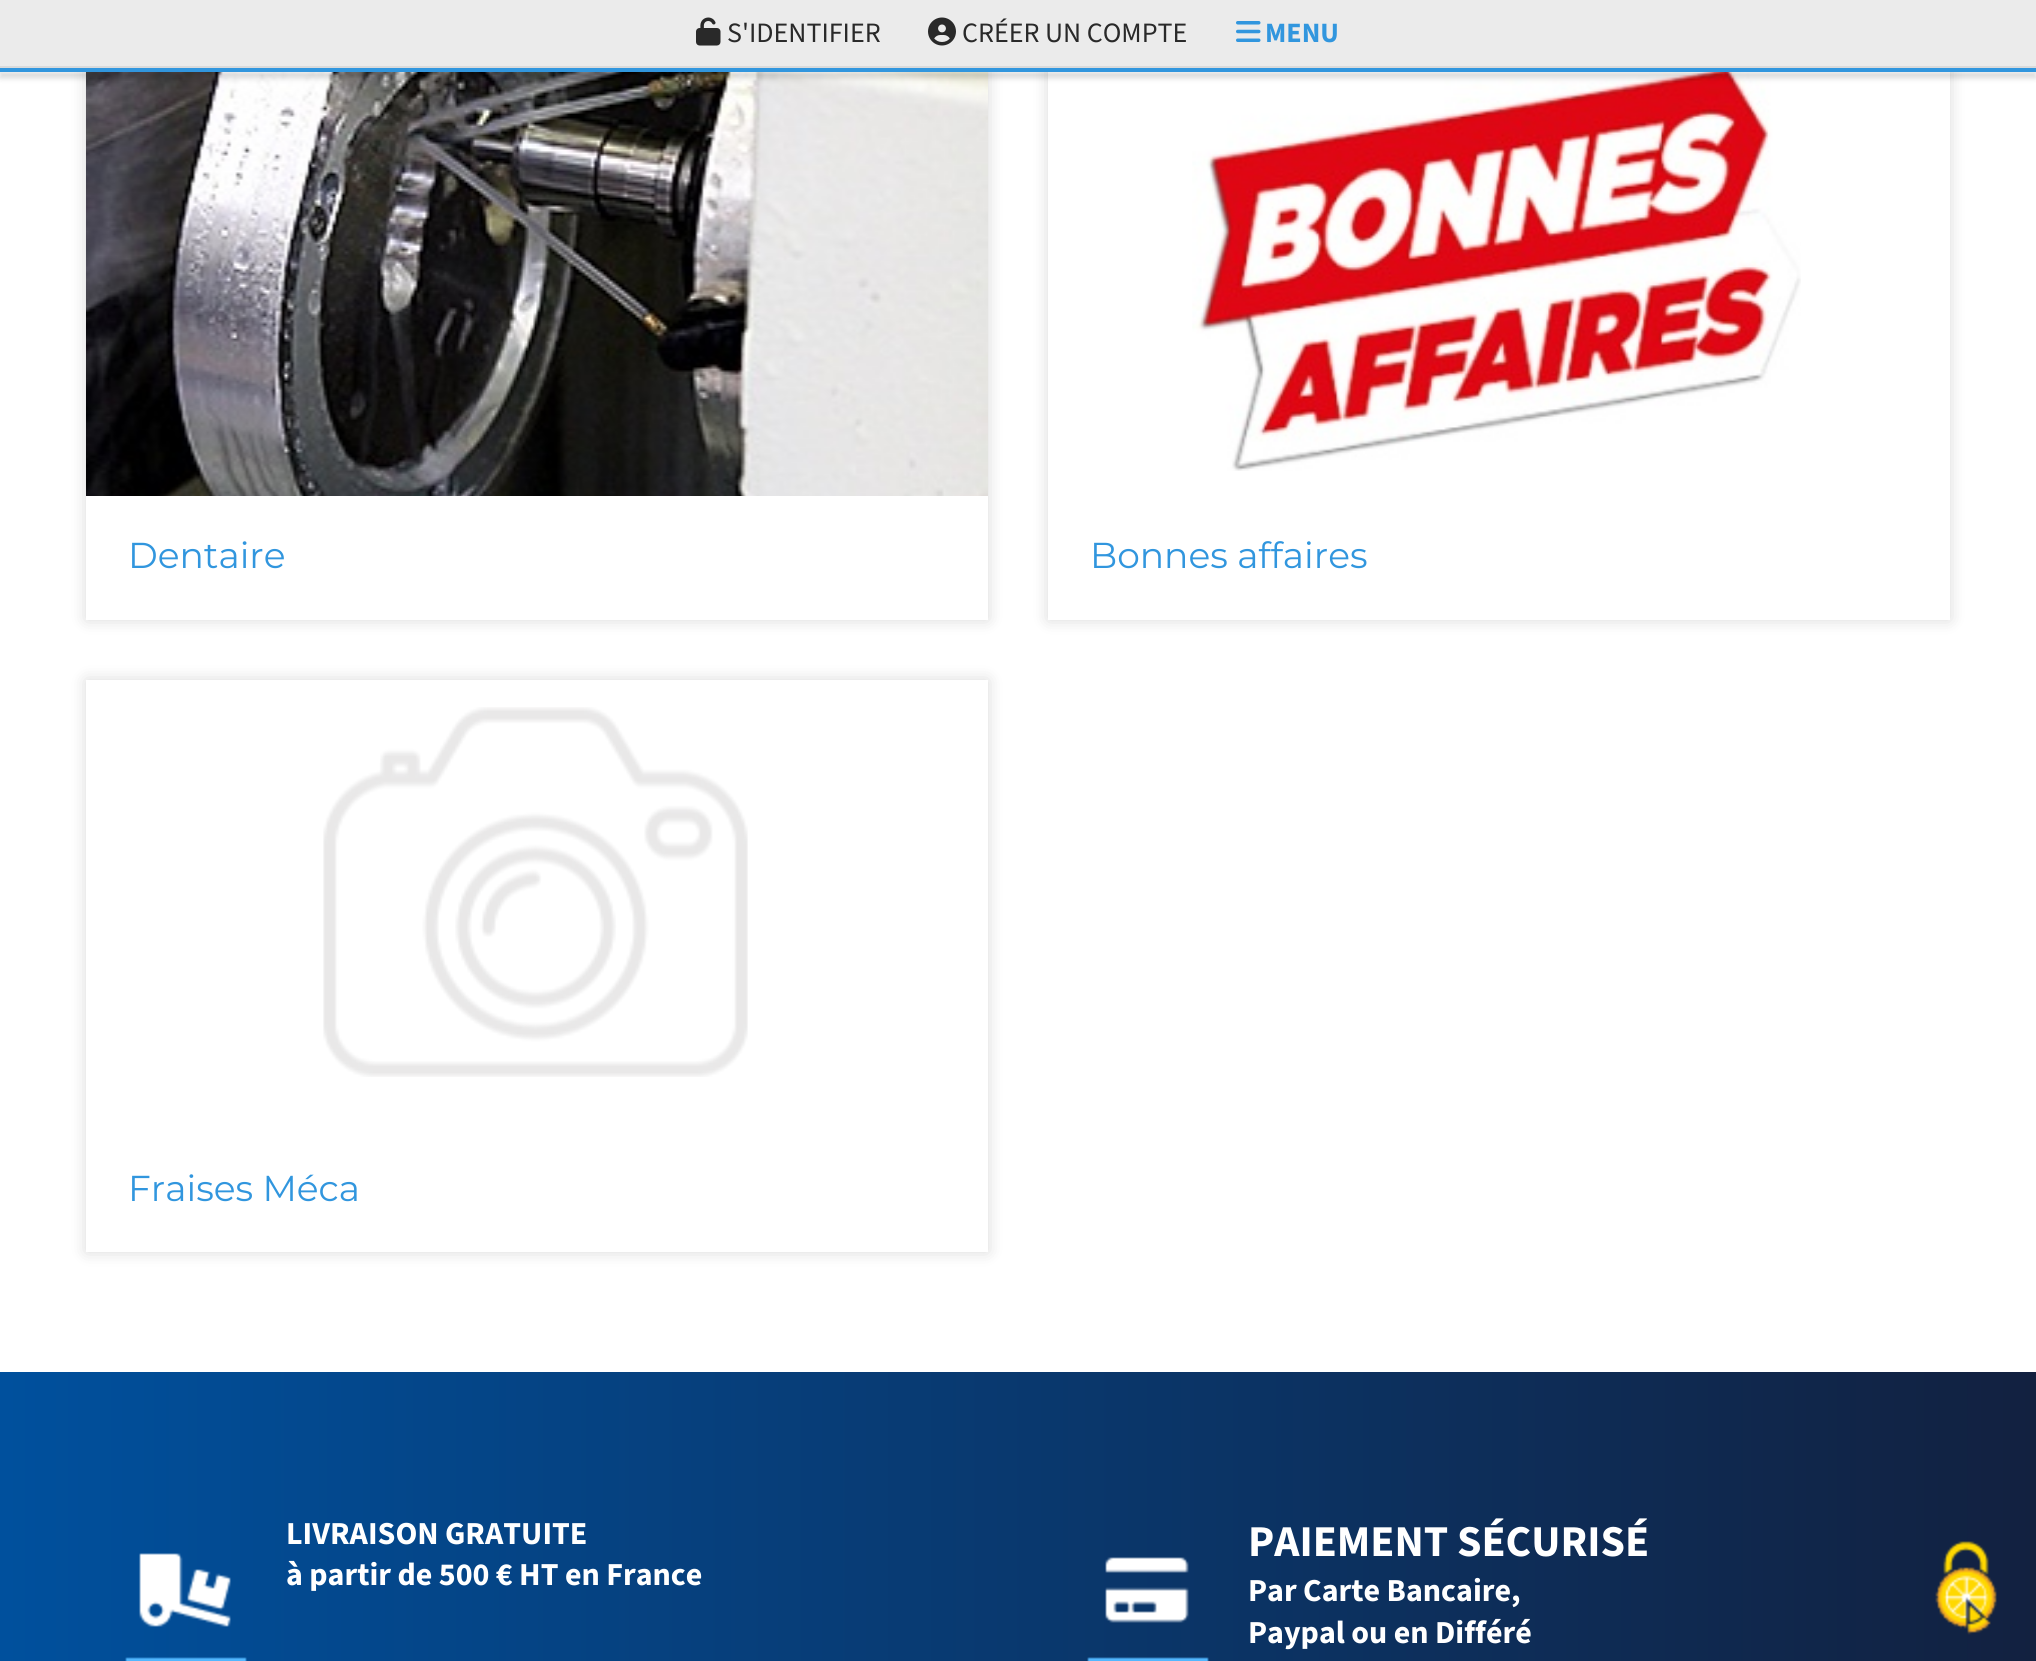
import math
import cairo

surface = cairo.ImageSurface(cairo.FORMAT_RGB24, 2036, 1661)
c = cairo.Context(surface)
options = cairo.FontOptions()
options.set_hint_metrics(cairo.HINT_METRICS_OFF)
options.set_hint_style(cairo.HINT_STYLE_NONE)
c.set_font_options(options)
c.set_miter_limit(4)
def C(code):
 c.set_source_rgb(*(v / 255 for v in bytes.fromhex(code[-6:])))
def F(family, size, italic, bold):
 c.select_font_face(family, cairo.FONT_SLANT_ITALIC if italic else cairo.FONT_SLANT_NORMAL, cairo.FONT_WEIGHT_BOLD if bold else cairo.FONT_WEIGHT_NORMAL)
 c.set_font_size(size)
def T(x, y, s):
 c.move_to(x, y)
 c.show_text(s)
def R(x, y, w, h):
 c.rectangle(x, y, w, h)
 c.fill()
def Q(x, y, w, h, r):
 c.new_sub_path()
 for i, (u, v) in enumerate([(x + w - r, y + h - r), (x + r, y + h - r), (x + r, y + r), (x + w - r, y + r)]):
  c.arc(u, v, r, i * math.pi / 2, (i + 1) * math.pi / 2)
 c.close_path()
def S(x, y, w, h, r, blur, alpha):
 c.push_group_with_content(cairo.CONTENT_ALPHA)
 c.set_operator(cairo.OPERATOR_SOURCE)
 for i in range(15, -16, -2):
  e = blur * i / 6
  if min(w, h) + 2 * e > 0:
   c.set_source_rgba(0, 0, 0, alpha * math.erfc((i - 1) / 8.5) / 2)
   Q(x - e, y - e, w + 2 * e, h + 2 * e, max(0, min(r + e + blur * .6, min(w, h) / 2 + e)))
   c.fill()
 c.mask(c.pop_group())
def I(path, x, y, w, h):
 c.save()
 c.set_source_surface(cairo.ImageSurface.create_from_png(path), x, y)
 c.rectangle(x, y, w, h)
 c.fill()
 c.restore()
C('ffffff')
c.paint()
c.save()
c.set_fill_rule(cairo.FILL_RULE_EVEN_ODD)
c.new_path()
c.move_to(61,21)
c.line_to(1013,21)
c.line_to(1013,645)
c.line_to(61,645)
c.close_path()
c.move_to(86,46)
c.line_to(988,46)
c.line_to(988,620)
c.line_to(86,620)
c.close_path()
c.clip()
C('000000')
S(86,46,902,574,0,8,.15)
c.restore()
I('4.png',86,72,902,424)
c.save()
c.set_fill_rule(cairo.FILL_RULE_EVEN_ODD)
c.new_path()
c.move_to(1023,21)
c.line_to(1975,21)
c.line_to(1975,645)
c.line_to(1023,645)
c.close_path()
c.move_to(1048,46)
c.line_to(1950,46)
c.line_to(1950,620)
c.line_to(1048,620)
c.close_path()
c.clip()
C('000000')
S(1048,46,902,574,0,8,.15)
c.restore()
I('5.png',1192,72,609,399)
C('000000')
S(0,72,2036,6,0,3,.15)
C('ebebeb')
R(0,0,2036,66)
C('d9dadb')
R(0,66,2036,2)
I('1.png',696,17,25,29)
F('Source Sans 3',28,0,0)
C('292929')
T(727,42,'S\'IDENTIFIER')
I('2.png',928,17,28,29)
T(962,42,'CRÉER UN COMPTE')
I('3.png',1236,21,25,21)
F('Source Sans 3',28,0,1)
C('3196de')
T(1265,42,'MENU')
R(0,68,2036,4)
F('Montserrat',36,0,0)
T(128,568,'Dentaire')
T(1090,568,'Bonnes affaires')
c.save()
c.set_fill_rule(cairo.FILL_RULE_EVEN_ODD)
c.new_path()
c.move_to(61,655)
c.line_to(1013,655)
c.line_to(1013,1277)
c.line_to(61,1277)
c.close_path()
c.move_to(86,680)
c.line_to(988,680)
c.line_to(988,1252)
c.line_to(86,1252)
c.close_path()
c.clip()
C('000000')
S(86,680,902,572,0,8,.15)
c.restore()
I('6.png',323,707,425,370)
T(128,1201,'Fraises Méca')
gradient = cairo.LinearGradient(0,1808,2036,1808)
gradient.add_color_stop_rgba(0,0,0.314,0.616,1)
gradient.add_color_stop_rgba(1,0.071,0.129,0.251,1)
c.set_source(gradient)
R(0,1372,2036,289)
F('Source Sans 3',32,0,1)
C('ffffff')
T(286,1544,'LIVRAISON GRATUITE')
I('7.png',125,1553,122,108)
T(286,1585,'à partir de 500 € HT en France')
F('Source Sans 3',44,0,1)
T(1248,1556,'PAIEMENT SÉCURISÉ')
I('8.png',1087,1557,122,104)
F('Source Sans 3',32,0,1)
T(1248,1601,'Par Carte Bancaire,')
T(1248,1643,'Paypal ou en Différé')
I('9.png',1935,1541,62,94)
surface.write_to_png('o.png')
